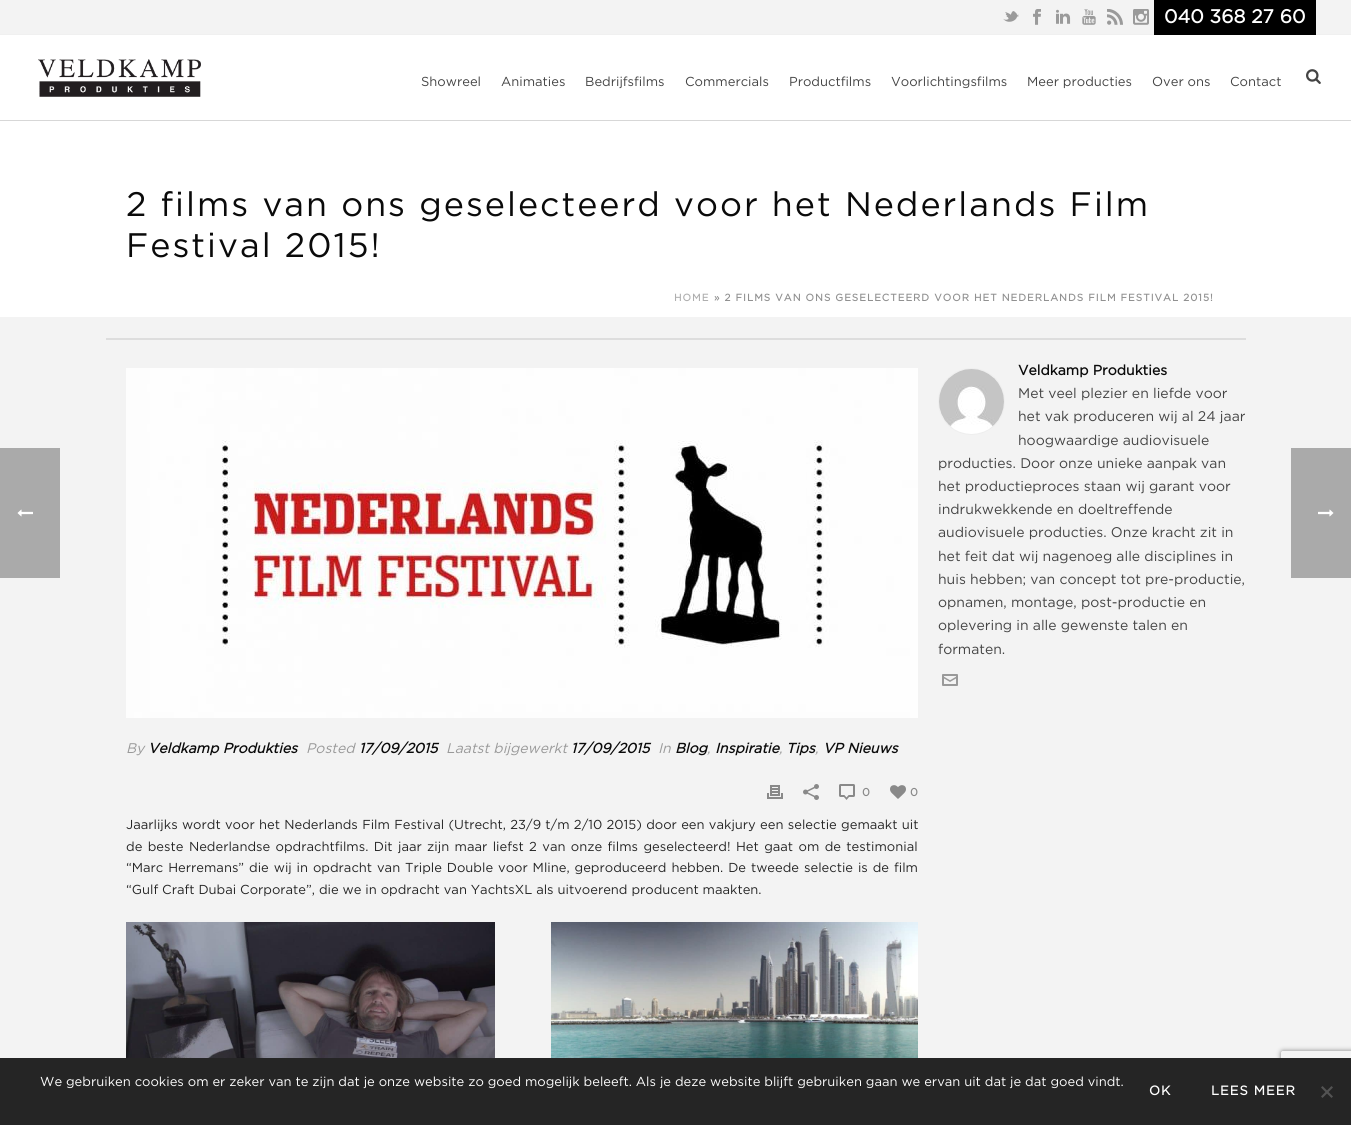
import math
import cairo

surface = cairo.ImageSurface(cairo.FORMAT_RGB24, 1351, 1125)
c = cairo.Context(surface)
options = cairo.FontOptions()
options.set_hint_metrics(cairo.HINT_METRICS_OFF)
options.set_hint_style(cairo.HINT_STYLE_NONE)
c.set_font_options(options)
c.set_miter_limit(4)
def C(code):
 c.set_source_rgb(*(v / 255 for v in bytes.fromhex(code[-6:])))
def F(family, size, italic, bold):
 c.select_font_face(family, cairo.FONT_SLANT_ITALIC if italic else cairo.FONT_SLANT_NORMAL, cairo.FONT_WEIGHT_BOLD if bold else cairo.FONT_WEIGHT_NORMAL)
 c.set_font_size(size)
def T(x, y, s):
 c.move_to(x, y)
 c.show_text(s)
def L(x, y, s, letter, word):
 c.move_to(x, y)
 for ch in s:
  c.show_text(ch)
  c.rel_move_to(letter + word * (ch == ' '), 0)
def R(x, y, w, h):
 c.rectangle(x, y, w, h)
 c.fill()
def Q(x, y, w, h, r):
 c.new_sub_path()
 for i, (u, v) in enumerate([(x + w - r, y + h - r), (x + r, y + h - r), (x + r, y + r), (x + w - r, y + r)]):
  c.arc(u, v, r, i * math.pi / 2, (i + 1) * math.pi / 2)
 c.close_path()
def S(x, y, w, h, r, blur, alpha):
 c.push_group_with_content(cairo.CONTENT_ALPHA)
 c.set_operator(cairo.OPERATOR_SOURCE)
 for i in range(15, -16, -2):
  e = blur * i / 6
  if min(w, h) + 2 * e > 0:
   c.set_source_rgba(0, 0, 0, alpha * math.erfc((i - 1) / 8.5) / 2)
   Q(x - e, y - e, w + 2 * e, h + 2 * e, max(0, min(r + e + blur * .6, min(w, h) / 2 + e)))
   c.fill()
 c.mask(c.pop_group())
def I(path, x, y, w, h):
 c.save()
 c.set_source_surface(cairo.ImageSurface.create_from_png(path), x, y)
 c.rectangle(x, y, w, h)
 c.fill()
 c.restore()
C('f3f3f3')
c.paint()
C('aaaaaa')
R(0,448,60,130)
I('1.png',17,509,16,8)
C('ffffff')
R(0,121,1351,196)
C('f0f0f0')
R(0,34,1351,1)
I('2.png',1003,11,16,11)
I('3.png',1033,9,8,16)
I('4.png',1056,9,15,15)
I('5.png',1082,9,14,16)
I('6.png',1107,9,16,16)
I('7.png',1133,9,16,16)
C('000000')
R(1154,0,162,35)
F('Gotham',19,0,1)
C('ffffff')
T(1164,23,'040 368 27 60')
C('d7d7d7')
R(0,120,1351,1)
C('ffffff')
R(0,35,1351,85)
I('8.png',38,59,163,38)
F('Gotham',13,0,0)
C('444444')
T(421,86,'Showreel')
T(501,86,'Animaties')
T(585,86,'Bedrijfsfilms')
T(685,86,'Commercials')
T(789,86,'Productfilms')
T(891,86,'Voorlichtingsfilms')
T(1027,86,'Meer producties')
T(1152,86,'Over ons')
T(1230,86,'Contact')
I('9.png',1306,69,15,15)
F('Gotham',34,0,0)
C('0a0a0a')
L(126,216,'2 films van ons geselecteerd voor het Nederlands Film',2,0)
L(126,257,'Festival 2015!',2,0)
F('Gotham',10,0,1)
C('afafaf')
L(674,301,'HOME',1,0)
C('919191')
L(714,301,'» 2 FILMS VAN ONS GESELECTEERD VOOR HET NEDERLANDS FILM FESTIVAL 2015!',1,0)
C('dddddd')
R(106,338,1140,2)
c.new_path()
c.arc(971.5,401.5,33,0,2 * math.pi)
C('eeeeee')
c.set_line_width(1)
c.stroke()
I('10.png',939,369,65,65)
F('Gotham',14,0,1)
C('0a0a0a')
T(1018,375,'Veldkamp Produkties')
F('Gotham',14,0,0)
C('444444')
T(1018,398,'Met veel plezier en liefde voor')
T(1018,421,'het vak produceren wij al 24 jaar')
T(1018,445,'hoogwaardige audiovisuele')
T(938,468,'producties. Door onze unieke aanpak van')
T(938,491,'het productieproces staan wij garant voor')
T(938,514,'indrukwekkende en doeltreffende')
T(938,537,'audiovisuele producties. Onze kracht zit in')
T(938,561,'het feit dat wij nagenoeg alle disciplines in')
T(938,584,'huis hebben; van concept tot pre-productie,')
T(938,607,'opnamen, montage, post-productie en')
T(938,630,'oplevering in alle gewenste talen en')
T(938,654,'formaten.')
I('11.png',942,674,16,12)
I('12.png',126,368,792,350)
F('Gotham',14,1,0)
C('999999')
T(126,753,'By')
F('Gotham',14,1,1)
C('0a0a0a')
T(148,753,'Veldkamp Produkties')
F('Gotham',14,1,0)
C('999999')
T(306,753,'Posted')
F('Gotham',14,1,1)
C('0a0a0a')
T(359,753,'17/09/2015')
F('Gotham',14,1,0)
C('999999')
T(446,753,'Laatst bijgewerkt')
F('Gotham',14,1,1)
C('0a0a0a')
T(571,753,'17/09/2015')
F('Gotham',14,1,0)
C('999999')
T(658,753,'In')
F('Gotham',14,1,1)
C('0a0a0a')
T(675,753,'Blog')
F('Gotham',14,1,0)
C('999999')
T(707,753,',')
F('Gotham',14,1,1)
C('0a0a0a')
T(715,753,'Inspiratie')
F('Gotham',14,1,0)
C('999999')
T(779,753,',')
F('Gotham',14,1,1)
C('0a0a0a')
T(786,753,'Tips')
T(823,753,'VP Nieuws')
F('Gotham',14,1,0)
C('999999')
T(815,753,',')
I('13.png',767,785,16,14)
I('14.png',803,784,16,16)
I('15.png',839,784,16,16)
F('Gotham',11,0,1)
C('898989')
T(862,796,'0')
I('16.png',890,785,16,14)
T(910,796,'0')
F('Gotham',13,0,0)
C('252525')
L(126,829,'Jaarlijks wordt voor het Nederlands Film Festival (Utrecht, 23/9 t/m 2/10 2015) door een vakjury een selectie gemaakt uit',0,.4)
L(126,851,'de beste Nederlandse opdrachtfilms. Dit jaar zijn maar liefst 2 van onze films geselecteerd! Het gaat om de testimonial',0,1.5)
L(126,872,'“Marc Herremans” die wij in opdracht van Triple Double voor Mline, geproduceerd hebben. De tweede selectie is de film',0,1)
T(126,894,'“Gulf Craft Dubai Corporate”, die we in opdracht van YachtsXL als uitvoerend producent maakten.')
I('17.png',126,922,369,136)
I('18.png',551,922,367,136)
C('aaaaaa')
R(1291,448,60,130)
I('19.png',1318,509,16,8)
c.save()
c.set_fill_rule(cairo.FILL_RULE_EVEN_ODD)
c.new_path()
c.move_to(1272,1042)
c.line_to(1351,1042)
c.line_to(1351,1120)
c.line_to(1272,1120)
c.close_path()
c.move_to(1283,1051)
c.line_to(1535,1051)
c.curve_to(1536,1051,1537,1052,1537,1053)
c.line_to(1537,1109)
c.curve_to(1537,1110,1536,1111,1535,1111)
c.line_to(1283,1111)
c.curve_to(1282,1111,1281,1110,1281,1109)
c.line_to(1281,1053)
c.curve_to(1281,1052,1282,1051,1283,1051)
c.close_path()
c.clip()
C('808080')
S(1281,1051,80,60,2,2.5,1)
c.restore()
C('252525')
R(0,1058,1351,67)
C('ffffff')
T(40,1086,'We gebruiken cookies om er zeker van te zijn dat je onze website zo goed mogelijk beleeft. Als je deze website blijft gebruiken gaan we ervan uit dat je dat goed vindt.')
F('Gotham',13,0,1)
L(1149,1095,'OK',1,0)
L(1211,1095,'LEES MEER',1,0)
C('535353')
c.new_path()
c.move_to(1331.5,1086)
c.line_to(1333,1087.5)
c.line_to(1322.5,1098)
c.line_to(1321,1096.5)
c.close_path()
c.fill()
c.new_path()
c.move_to(1321,1087.5)
c.line_to(1322.5,1086)
c.line_to(1333,1096.5)
c.line_to(1331.5,1098)
c.close_path()
c.fill()
surface.write_to_png('o.png')
